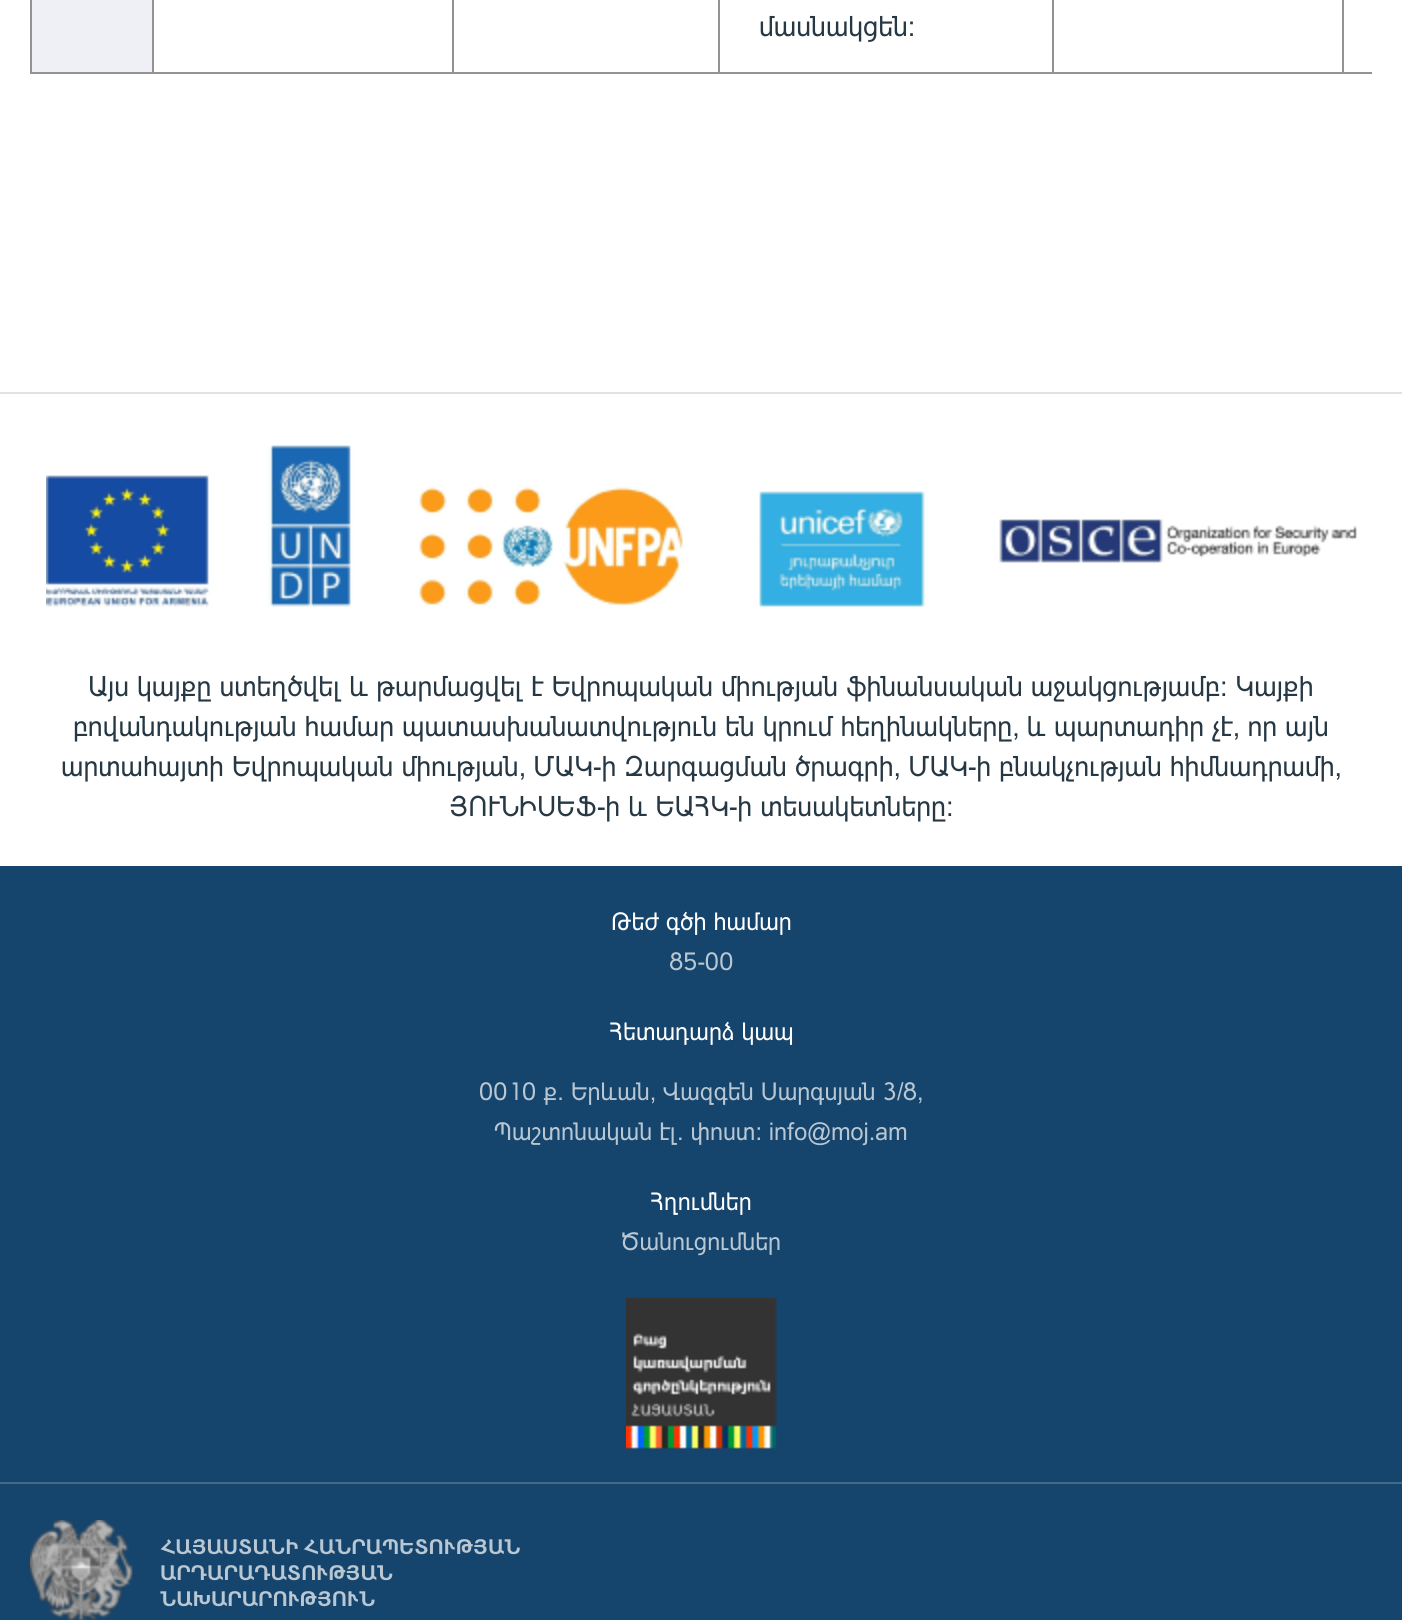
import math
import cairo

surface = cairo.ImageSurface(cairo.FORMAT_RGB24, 1402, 1620)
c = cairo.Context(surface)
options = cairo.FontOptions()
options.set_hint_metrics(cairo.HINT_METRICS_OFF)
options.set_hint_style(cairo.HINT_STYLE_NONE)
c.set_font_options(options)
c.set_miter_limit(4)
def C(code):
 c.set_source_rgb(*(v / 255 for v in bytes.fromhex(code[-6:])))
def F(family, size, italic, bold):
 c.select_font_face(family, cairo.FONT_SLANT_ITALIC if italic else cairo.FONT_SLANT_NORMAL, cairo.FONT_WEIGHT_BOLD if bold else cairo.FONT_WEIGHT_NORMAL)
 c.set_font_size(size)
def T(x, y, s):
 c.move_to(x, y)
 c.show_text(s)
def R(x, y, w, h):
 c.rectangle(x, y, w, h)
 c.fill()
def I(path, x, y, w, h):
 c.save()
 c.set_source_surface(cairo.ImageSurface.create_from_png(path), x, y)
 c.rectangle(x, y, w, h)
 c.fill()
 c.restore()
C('ffffff')
c.paint()
C('eff0f6')
R(32,0,120,72)
C('939393')
R(1342,72,30,2)
R(1342,0,2,74)
R(1052,72,292,2)
R(1052,0,2,74)
R(718,72,336,2)
R(718,0,2,74)
R(452,72,268,2)
R(452,0,2,74)
R(152,72,302,2)
R(152,0,2,74)
R(30,72,124,2)
R(30,0,2,74)
F('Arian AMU',28,0,0)
C('273845')
T(759,36,'մասնակցեն:')
C('e2e2e2')
R(0,392,1402,2)
I('1.png',46,445,1311,163)
C('273845')
T(88,696,'Այս կայքը ստեղծվել և թարմացվել է Եվրոպական միության ֆինանսական աջակցությամբ: Կայքի')
T(73,736,'բովանդակության համար պատասխանատվություն են կրում հեղինակները, և պարտադիր չէ, որ այն')
T(61,776,'արտահայտի Եվրոպական միության, ՄԱԿ-ի Զարգացման ծրագրի, ՄԱԿ-ի բնակչության հիմնադրամի,')
T(449,816,'ՅՈՒՆԻՍԵՖ-ի և ԵԱՀԿ-ի տեսակետները:')
C('15446c')
R(0,866,1402,754)
F('Arian AMU',24.5,0,0)
C('ffffff')
T(611,930,'Թեժ գծի համար')
C('b9c7d3')
T(669,970,'85-00')
C('ffffff')
T(609,1040,'Հետադարձ կապ')
C('b9c7d3')
T(479,1100,'0010 ք. Երևան, Վազգեն Սարգսյան 3/8,')
T(494,1140,'Պաշտոնական էլ. փոստ: info@moj.am')
C('ffffff')
T(650,1210,'Հղումներ')
C('b9c7d3')
T(621,1250,'Ծանուցումներ')
I('2.png',626,1298,151,151)
C('446989')
R(0,1482,1402,2)
I('3.png',30,1520,103,100)
F('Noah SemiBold',21,0,0)
C('b9c7d3')
T(160,1554,'ՀԱՅԱՍՏԱՆԻ ՀԱՆՐԱՊԵՏՈՒԹՅԱՆ')
T(160,1580,'ԱՐԴԱՐԱԴԱՏՈՒԹՅԱՆ')
T(160,1606,'ՆԱԽԱՐԱՐՈՒԹՅՈՒՆ')
surface.write_to_png('o.png')
